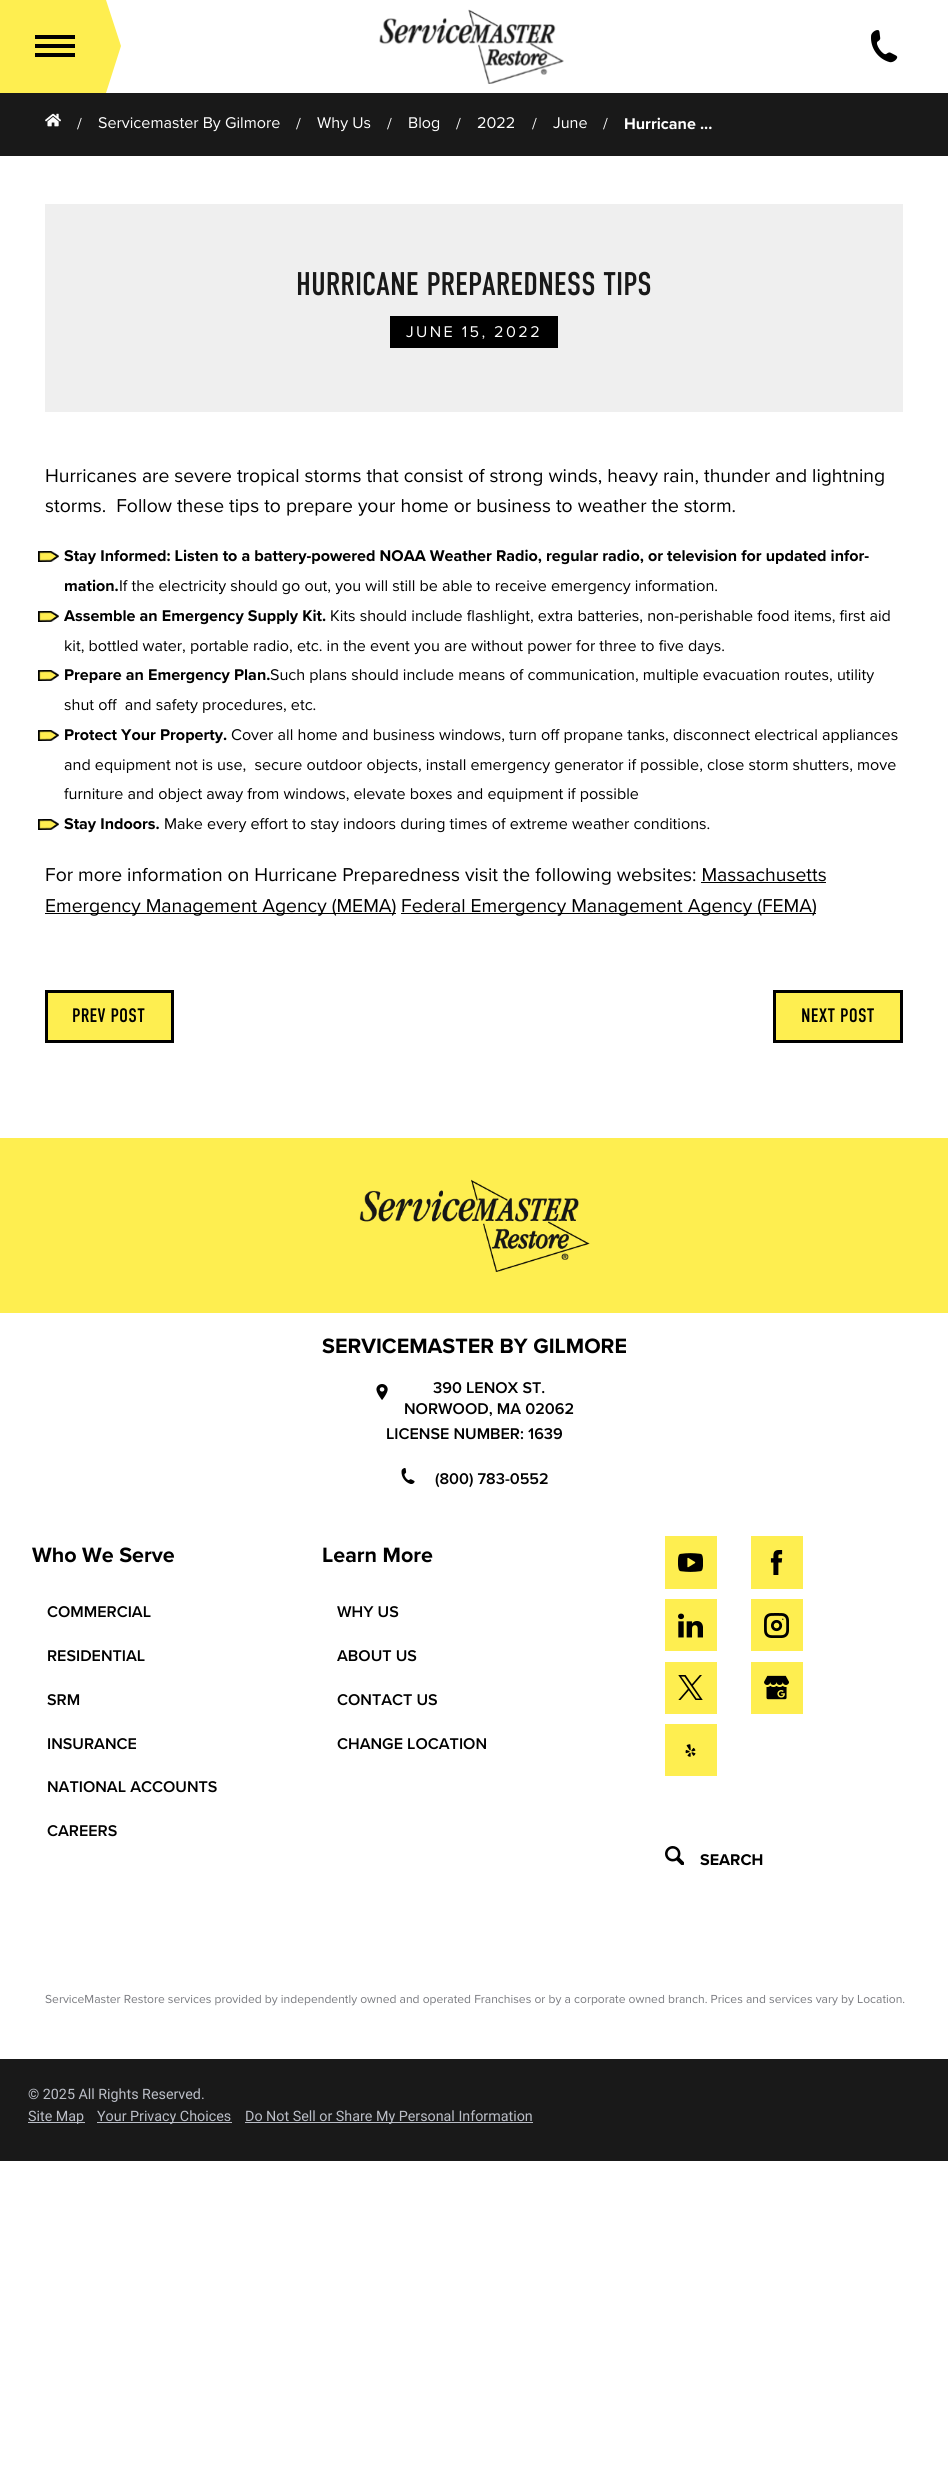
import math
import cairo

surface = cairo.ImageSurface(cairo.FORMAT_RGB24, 948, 2483)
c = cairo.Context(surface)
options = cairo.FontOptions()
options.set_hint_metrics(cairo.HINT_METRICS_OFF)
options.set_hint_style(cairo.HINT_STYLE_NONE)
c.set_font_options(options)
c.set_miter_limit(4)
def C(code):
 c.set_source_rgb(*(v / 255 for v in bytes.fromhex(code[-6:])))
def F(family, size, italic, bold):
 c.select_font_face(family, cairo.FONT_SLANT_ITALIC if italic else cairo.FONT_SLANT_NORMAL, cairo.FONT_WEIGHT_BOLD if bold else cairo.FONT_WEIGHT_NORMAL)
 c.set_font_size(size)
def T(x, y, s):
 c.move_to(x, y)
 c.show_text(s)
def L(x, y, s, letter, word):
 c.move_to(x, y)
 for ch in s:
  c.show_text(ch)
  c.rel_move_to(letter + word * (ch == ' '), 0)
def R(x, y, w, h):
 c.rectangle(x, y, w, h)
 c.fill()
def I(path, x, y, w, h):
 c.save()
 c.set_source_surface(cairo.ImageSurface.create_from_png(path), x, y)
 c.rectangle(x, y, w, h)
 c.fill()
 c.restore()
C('ffffff')
c.paint()
C('feee50')
c.new_path()
c.move_to(0,0)
c.line_to(0,93)
c.line_to(106,93)
c.line_to(121,46)
c.line_to(106,0)
c.close_path()
c.fill()
C('000000')
R(35,35,40,4)
R(35,44,40,4)
R(35,53,40,4)
I('1.png',379,9,185,75)
I('2.png',871,30,27,33)
C('191919')
R(0,93,948,63)
I('3.png',45,113,16,14)
F('Proxima Nova',16.12,0,0)
C('ffffff')
T(77,129,'/')
T(98,128,'Servicemaster By Gilmore')
T(296,129,'/')
T(317,128,'Why Us')
T(387,129,'/')
T(408,128,'Blog')
T(456,129,'/')
T(477,128,'2022')
T(532,129,'/')
T(553,128,'June')
T(603,129,'/')
F('Proxima Nova',16.12,0,1)
T(624,129,'Hurricane ...')
C('efefef')
R(45,204,858,208)
F('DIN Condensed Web',32.75,0,0)
C('191919')
T(296,295,'HURRICANE PREPAREDNESS TIPS')
C('000000')
R(390,316,168,32)
F('Proxima Nova',16.12,0,0)
C('ffffff')
L(406,337,'JUNE 15, 2022',2.4,0)
F('Proxima Nova',19.35,0,0)
C('000000')
T(45,482,'Hurricanes are severe tropical storms that consist of strong winds, heavy rain, thunder and lightning')
T(45,512,'storms.  Follow these tips to prepare your home or business to weather the storm.')
I('4.png',38,551,21,11)
F('Proxima Nova',16.12,0,1)
T(64,561,'Stay Informed: Listen to a battery-powered NOAA Weather Radio, regular radio, or television for updated infor-')
T(64,591,'mation.')
F('Proxima Nova',16.12,0,0)
T(119,591,'If the electricity should go out, you will still be able to receive emergency information.')
I('4.png',38,611,21,11)
F('Proxima Nova',16.12,0,1)
T(64,621,'Assemble an Emergency Supply Kit.')
F('Proxima Nova',16.12,0,0)
T(330,621,'Kits should include flashlight, extra batteries, non-perishable food items, first aid')
T(64,651,'kit, bottled water, portable radio, etc. in the event you are without power for three to five days.')
I('4.png',38,670,21,11)
F('Proxima Nova',16.12,0,1)
T(64,680,'Prepare an Emergency Plan.')
F('Proxima Nova',16.12,0,0)
T(270,680,'Such plans should include means of communication, multiple evacuation routes, utility')
T(64,710,'shut off  and safety procedures, etc.')
I('4.png',38,730,21,11)
F('Proxima Nova',16.12,0,1)
T(64,740,'Protect Your Property.')
F('Proxima Nova',16.12,0,0)
T(231,740,'Cover all home and business windows, turn off propane tanks, disconnect electrical appliances')
T(64,770,'and equipment not is use,  secure outdoor objects, install emergency generator if possible, close storm shutters, move')
T(64,799,'furniture and object away from windows, elevate boxes and equipment if possible')
I('4.png',38,819,21,11)
F('Proxima Nova',16.12,0,1)
T(64,829,'Stay Indoors.')
F('Proxima Nova',16.12,0,0)
T(164,829,'Make every effort to stay indoors during times of extreme weather conditions.')
F('Proxima Nova',19.35,0,0)
T(45,881,'For more information on Hurricane Preparedness visit the following websites: Massachusetts')
R(45,913,351,1)
T(45,912,'Emergency Management Agency (MEMA)')
R(701,882,125,1)
R(401,913,415,1)
T(401,912,'Federal Emergency Management Agency (FEMA)')
C('feee50')
c.rectangle(46.5,991.5,126,50)
c.fill_preserve()
C('000000')
c.set_line_width(3)
c.stroke()
F('DIN Condensed Web',19.5,0,0)
L(72,1022,'PREV POST',.25,0)
C('feee50')
c.rectangle(774.5,991.5,127,50)
c.fill_preserve()
C('000000')
c.stroke()
L(801,1022,'NEXT POST',.25,0)
C('feee50')
R(0,1138,948,175)
I('5.png',359,1179,231,93)
F('Proxima Nova',21.5,0,1)
C('000000')
T(322,1353,'SERVICEMASTER BY GILMORE')
I('6.png',376,1384,12,16)
F('Proxima Nova SemiBold',16.12,0,0)
T(433,1393,'390 LENOX ST.')
T(404,1414,'NORWOOD, MA 02062')
T(386,1439,'LICENSE NUMBER: 1639')
I('7.png',401,1468,14,16)
T(435,1484,'(800) 783-0552')
F('Proxima Nova',21.5,0,1)
T(32,1562,'Who We Serve')
F('Proxima Nova SemiBold',16.12,0,0)
T(47,1617,'COMMERCIAL')
T(47,1661,'RESIDENTIAL')
T(47,1705,'SRM')
T(47,1749,'INSURANCE')
T(47,1792,'NATIONAL ACCOUNTS')
T(47,1836,'CAREERS')
F('Proxima Nova',21.5,0,1)
T(322,1562,'Learn More')
F('Proxima Nova SemiBold',16.12,0,0)
T(337,1617,'WHY US')
T(337,1661,'ABOUT US')
T(337,1705,'CONTACT US')
T(337,1749,'CHANGE LOCATION')
C('feee50')
R(665,1536,52,53)
I('8.png',678,1553,25,19)
R(751,1536,52,53)
I('9.png',770,1550,13,25)
R(665,1599,52,52)
I('10.png',678,1613,25,25)
R(751,1599,52,52)
I('11.png',764,1613,25,25)
R(665,1662,52,52)
I('12.png',678,1675,25,25)
R(751,1662,52,52)
I('13.png',764,1675,25,25)
R(665,1724,52,52)
I('14.png',685,1744,11,13)
I('15.png',665,1846,19,19)
F('Proxima Nova',16.12,0,1)
C('000000')
T(700,1865,'SEARCH')
F('Proxima Nova',12.1,0,0)
C('797a7f')
T(45,2003,'ServiceMaster Restore services provided by independently owned and operated Franchises or by a corporate owned branch. Prices and services vary by Location.')
C('191919')
R(0,2059,948,102)
F('Roboto',14.3,0,0)
C('bbbec7')
T(28,2099,'© 2025 All Rights Reserved.')
R(28,2122,57,1)
T(28,2121,'Site Map')
R(97,2122,135,1)
T(97,2121,'Your Privacy Choices')
R(245,2122,288,1)
T(245,2121,'Do Not Sell or Share My Personal Information')
surface.write_to_png('o.png')
